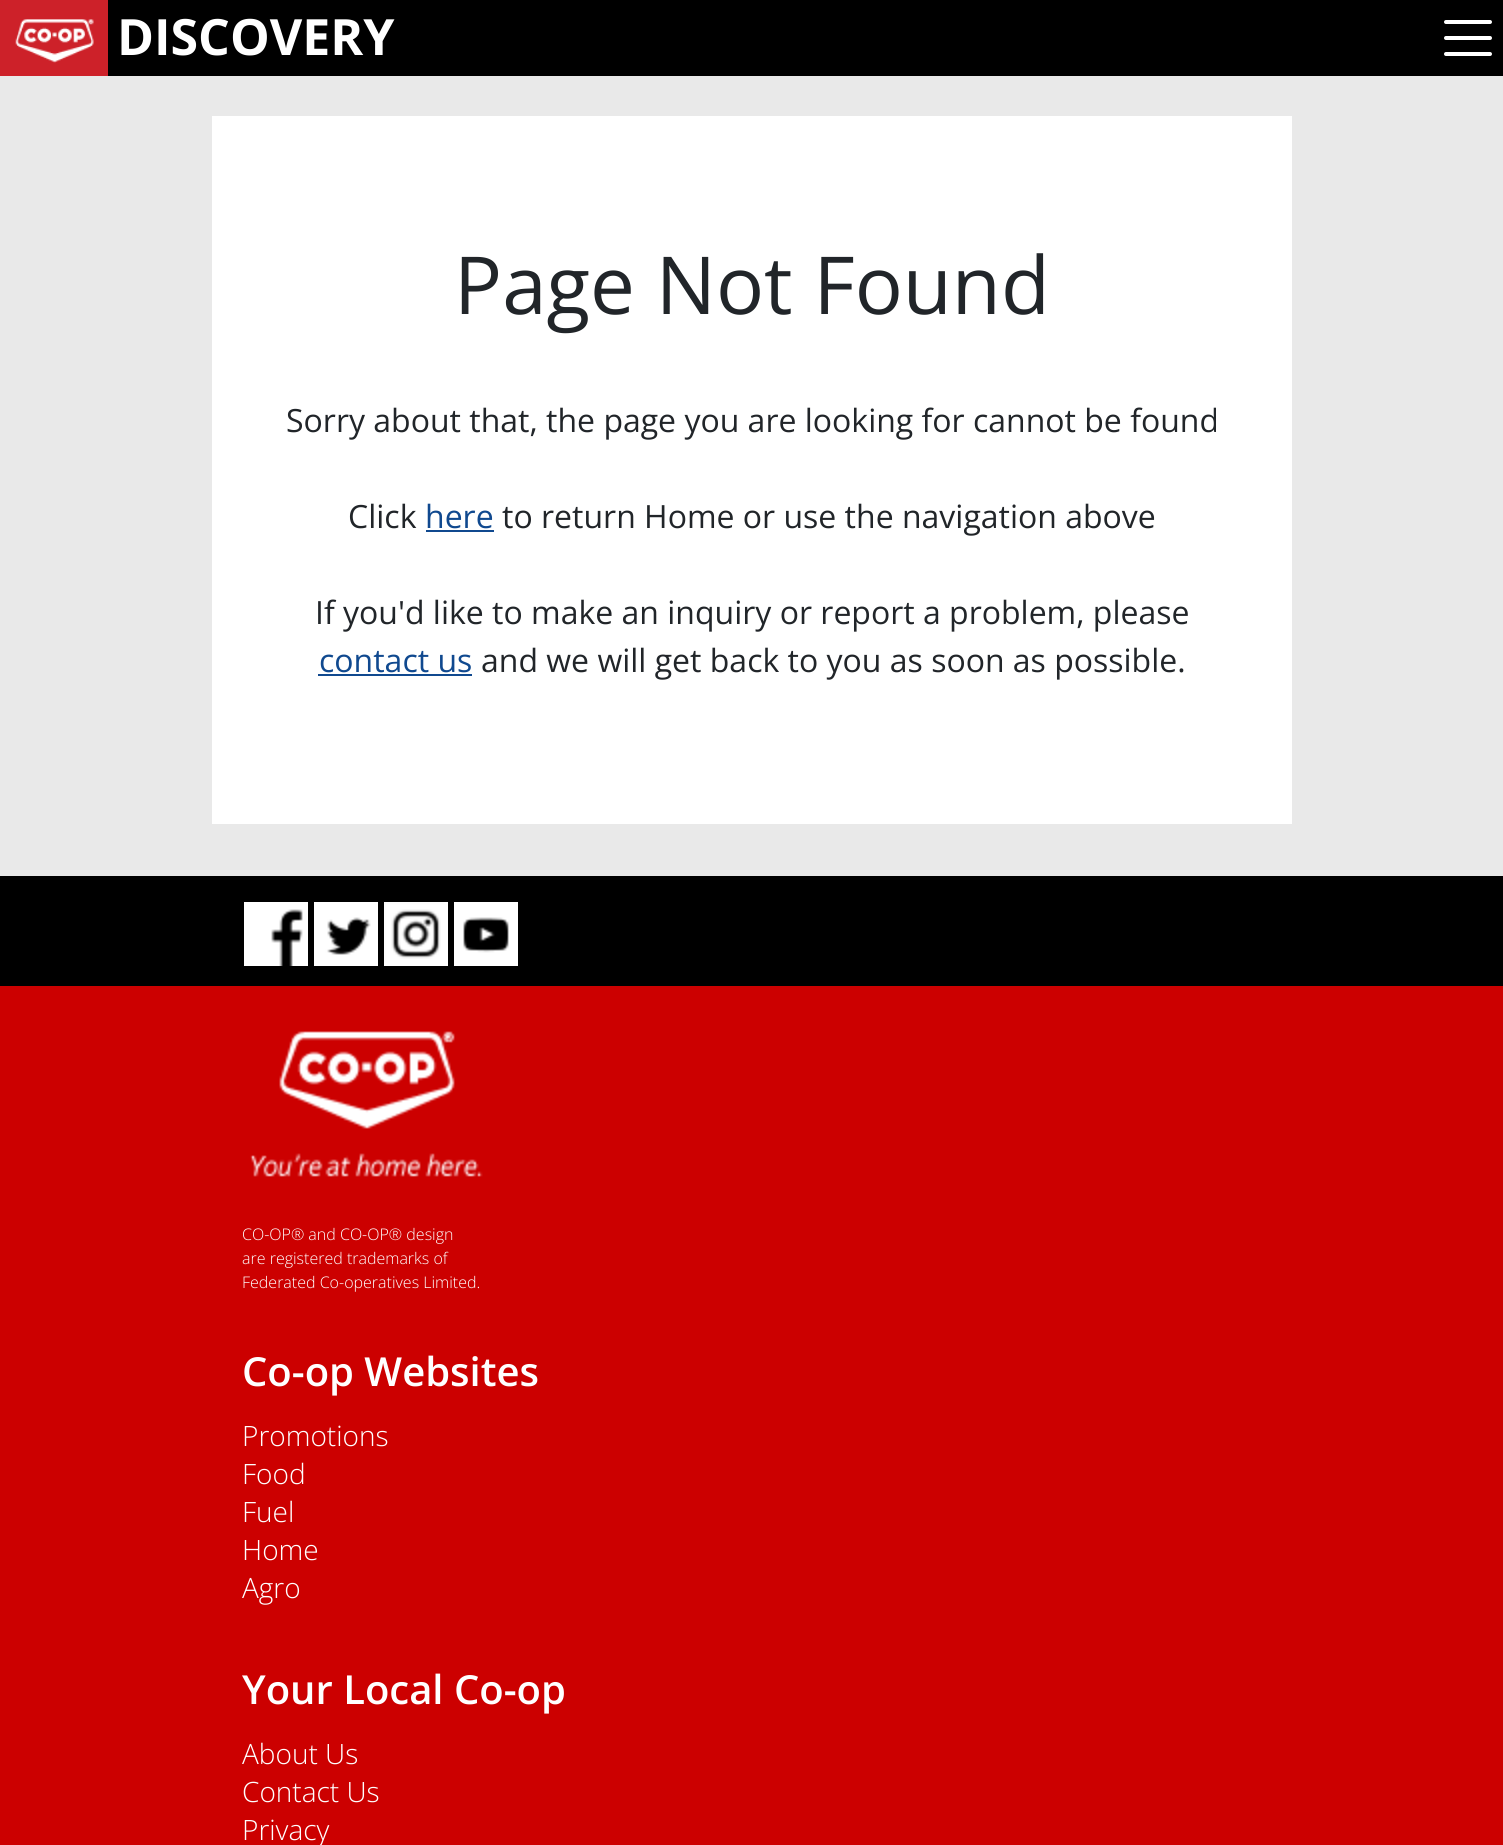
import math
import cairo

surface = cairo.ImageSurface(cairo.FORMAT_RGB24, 1503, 1845)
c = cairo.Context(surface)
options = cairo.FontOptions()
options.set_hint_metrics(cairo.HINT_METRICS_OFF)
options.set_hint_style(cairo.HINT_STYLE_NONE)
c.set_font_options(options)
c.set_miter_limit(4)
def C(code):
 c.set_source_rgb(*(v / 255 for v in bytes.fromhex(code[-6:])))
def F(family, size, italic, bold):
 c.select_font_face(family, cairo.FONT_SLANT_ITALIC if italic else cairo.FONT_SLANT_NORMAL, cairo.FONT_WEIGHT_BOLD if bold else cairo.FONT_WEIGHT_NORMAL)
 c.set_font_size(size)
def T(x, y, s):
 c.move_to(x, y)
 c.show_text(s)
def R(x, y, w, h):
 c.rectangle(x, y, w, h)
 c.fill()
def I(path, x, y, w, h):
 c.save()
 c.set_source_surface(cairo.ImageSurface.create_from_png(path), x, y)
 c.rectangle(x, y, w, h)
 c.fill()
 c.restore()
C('e9e9e9')
c.paint()
C('000000')
R(108,0,1395,76)
I('1.png',0,0,108,76)
F('Open Sans',50,0,1)
C('ffffff')
T(117,55,'DISCOVERY')
c.new_path()
c.move_to(1446,22)
c.line_to(1490,22)
c.move_to(1446,38)
c.line_to(1490,38)
c.move_to(1446,54)
c.line_to(1490,54)
c.set_line_width(4)
c.set_line_cap(cairo.LINE_CAP_ROUND)
c.stroke()
R(212,116,1080,708)
F('Open Sans',80,0,0)
C('212529')
T(454,314,'Page Not Found')
F('Open Sans',32,0,0)
T(286,432,'Sorry about that, the page you are looking for cannot be found')
T(348,528,'Click')
C('10498f')
T(425,528,'here')
R(426,530,68,2)
C('212529')
T(502,528,'to return Home or use the navigation above')
T(315,624,'If you\'d like to make an inquiry or report a problem, please')
C('10498f')
T(319,672,'contact us')
R(318,674,154,2)
C('212529')
T(481,672,'and we will get back to you as soon as possible.')
C('cc0000')
R(0,986,1503,859)
C('000000')
R(0,876,1503,110)
I('2.png',244,902,64,64)
I('3.png',314,902,64,64)
I('4.png',384,902,64,64)
I('5.png',454,902,64,64)
I('6.png',250,1031,233,146)
F('Open Sans Light',16,0,0)
C('ffffff')
T(242,1240,'CO-OP® and CO-OP® design')
T(242,1264,'are registered trademarks of')
T(242,1288,'Federated Co-operatives Limited.')
F('Open Sans SemiBold',40,0,0)
T(242,1386,'Co-op Websites')
F('Open Sans Light',28,0,0)
T(242,1446,'Promotions')
T(242,1484,'Food')
T(242,1522,'Fuel')
T(242,1560,'Home')
T(242,1598,'Agro')
F('Open Sans SemiBold',40,0,0)
T(242,1704,'Your Local Co-op')
F('Open Sans Light',28,0,0)
T(242,1764,'About Us')
T(242,1802,'Contact Us')
T(242,1840,'Privacy')
surface.write_to_png('o.png')
